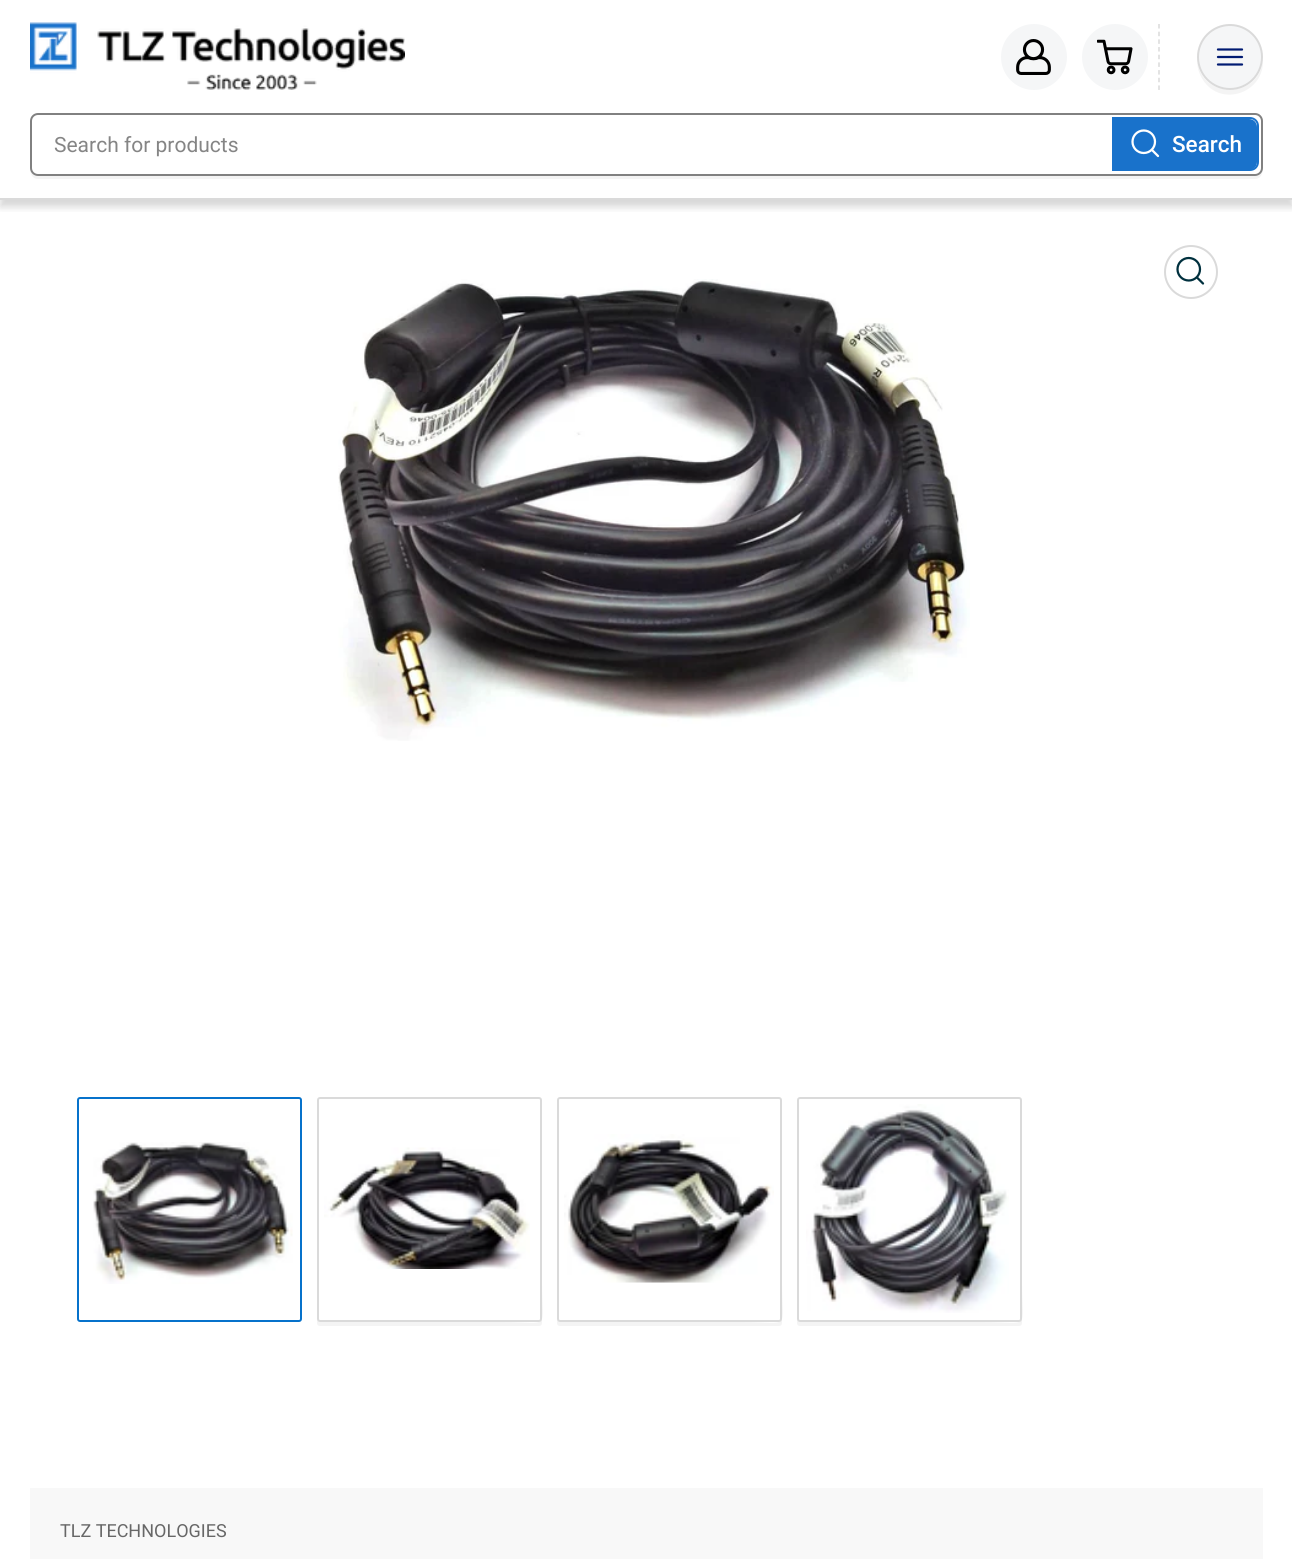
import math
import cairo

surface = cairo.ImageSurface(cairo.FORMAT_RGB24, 1292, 1559)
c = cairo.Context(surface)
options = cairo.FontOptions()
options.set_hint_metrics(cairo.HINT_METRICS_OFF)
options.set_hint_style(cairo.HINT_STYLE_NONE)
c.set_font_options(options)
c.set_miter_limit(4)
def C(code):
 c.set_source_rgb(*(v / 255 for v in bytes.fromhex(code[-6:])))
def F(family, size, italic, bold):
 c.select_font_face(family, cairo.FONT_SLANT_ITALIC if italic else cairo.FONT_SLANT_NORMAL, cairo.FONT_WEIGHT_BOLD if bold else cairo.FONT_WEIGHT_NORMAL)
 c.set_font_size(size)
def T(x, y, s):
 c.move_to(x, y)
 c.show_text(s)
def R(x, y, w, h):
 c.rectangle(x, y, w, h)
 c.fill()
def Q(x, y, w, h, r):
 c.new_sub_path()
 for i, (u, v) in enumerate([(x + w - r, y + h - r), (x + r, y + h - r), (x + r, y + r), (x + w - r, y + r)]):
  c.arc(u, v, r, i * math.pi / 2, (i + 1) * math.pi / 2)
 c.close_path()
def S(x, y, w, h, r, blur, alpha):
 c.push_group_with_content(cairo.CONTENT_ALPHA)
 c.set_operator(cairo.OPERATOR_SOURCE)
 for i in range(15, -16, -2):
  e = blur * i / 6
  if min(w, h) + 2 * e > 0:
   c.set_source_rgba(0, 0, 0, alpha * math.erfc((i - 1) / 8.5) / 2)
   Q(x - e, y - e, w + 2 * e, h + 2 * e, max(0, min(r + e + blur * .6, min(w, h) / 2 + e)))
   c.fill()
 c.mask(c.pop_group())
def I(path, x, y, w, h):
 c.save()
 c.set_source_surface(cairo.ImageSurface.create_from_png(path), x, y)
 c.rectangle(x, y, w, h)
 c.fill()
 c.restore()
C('ffffff')
c.paint()
c.save()
c.rectangle(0,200,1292,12)
c.clip()
C('000000')
S(0,8,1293,199,0,4,.16)
c.restore()
C('dadada')
R(0,198,1292,2)
I('1.png',30,22,375,68)
C('f5f6f7')
c.arc(1034,57,33,0,2 * math.pi)
c.fill()
I('2.png',1016,39,35,36)
c.arc(1115,57,33,0,2 * math.pi)
c.fill()
I('3.png',1097,39,36,36)
c.new_path()
c.move_to(1159,24)
c.line_to(1159,90)
C('dadada')
c.set_line_width(1.5)
c.set_dash([4.5,3.18])
c.stroke()
C('f4f4f4')
c.new_path()
c.move_to(1197,59)
c.curve_to(1197,67,1199,74,1203,80)
c.curve_to(1221,108,1265,93,1263,59)
c.curve_to(1260,100,1200,100,1197,59)
c.close_path()
c.fill()
C('f5f6f7')
c.arc(1230,57,32,0,2 * math.pi)
c.fill_preserve()
C('dadada')
c.set_line_width(2)
c.set_dash([])
c.stroke()
I('4.png',1216,48,28,18)
C('f4f4f4')
c.new_path()
c.move_to(30,168)
c.curve_to(30,173,32,179,38,179)
c.line_to(1255,179)
c.curve_to(1261,179,1263,173,1263,168)
c.curve_to(1263,172,1260,176,1256,176)
c.line_to(38,176)
c.curve_to(33,176,30,172,30,168)
c.close_path()
c.fill()
Q(31,114,1231,61,7)
C('818181')
c.stroke()
F('Roboto',21,0,0)
C('858585')
T(54,152,'Search for products')
c.new_path()
c.move_to(1113,118)
c.line_to(1250,118)
c.curve_to(1254.5,118,1258,121.5,1258,126)
c.line_to(1258,162)
c.curve_to(1258,166.5,1254.5,170,1250,170)
c.line_to(1113,170)
c.close_path()
C('1972cb')
c.stroke()
c.new_path()
c.move_to(1113,119)
c.line_to(1249,119)
c.curve_to(1253.5,119,1257,122.5,1257,127)
c.line_to(1257,162)
c.curve_to(1257,166.5,1253.5,170,1249,170)
c.line_to(1113,170)
c.close_path()
c.fill()
I('5.png',1131,129,29,29)
F('Roboto Medium',22.5,0,0)
C('ffffff')
T(1172,152,'Search')
c.new_path()
c.arc(1191,272,26,0,2 * math.pi)
C('dadada')
c.stroke()
I('6.png',1176,256,29,29)
I('7.png',338,279,632,462)
Q(78,1098,223,223,2)
C('0672cb')
c.stroke()
I('8.png',93,1142,200,142)
C('f4f4f4')
c.new_path()
c.move_to(317,1320)
c.line_to(317,1323)
c.curve_to(317,1325,318,1326,320,1326)
c.line_to(539,1326)
c.curve_to(541,1326,542,1325,542,1323)
c.line_to(542,1104)
c.line_to(542,1102)
c.line_to(542,1282)
c.curve_to(542,1332,552,1322,502,1322)
c.line_to(319,1321)
c.close_path()
c.fill()
C('ffffff')
Q(318,1098,223,223,2)
c.fill_preserve()
C('dadada')
c.stroke()
I('9.png',324,1147,206,122)
C('f4f4f4')
c.new_path()
c.move_to(557,1320)
c.line_to(557,1323)
c.curve_to(557,1325,558,1326,560,1326)
c.line_to(779,1326)
c.curve_to(781,1326,782,1325,782,1323)
c.line_to(782,1104)
c.line_to(782,1102)
c.line_to(782,1282)
c.curve_to(782,1332,792,1322,742,1322)
c.line_to(559,1321)
c.close_path()
c.fill()
C('ffffff')
Q(558,1098,223,223,2)
c.fill_preserve()
C('dadada')
c.stroke()
I('10.png',564,1134,210,149)
C('f4f4f4')
c.new_path()
c.move_to(797,1320)
c.line_to(797,1323)
c.curve_to(797,1325,798,1326,800,1326)
c.line_to(1019,1326)
c.curve_to(1021,1326,1022,1325,1022,1323)
c.line_to(1022,1104)
c.line_to(1022,1102)
c.line_to(1022,1282)
c.curve_to(1022,1332,1032,1322,982,1322)
c.line_to(799,1321)
c.close_path()
c.fill()
C('ffffff')
Q(798,1098,223,223,2)
c.fill_preserve()
C('dadada')
c.stroke()
I('11.png',806,1104,203,209)
C('f8f8f8')
R(30,1488,1233,71)
F('Roboto',18,0,0)
C('676767')
T(60,1537,'TLZ TECHNOLOGIES')
surface.write_to_png('o.png')
